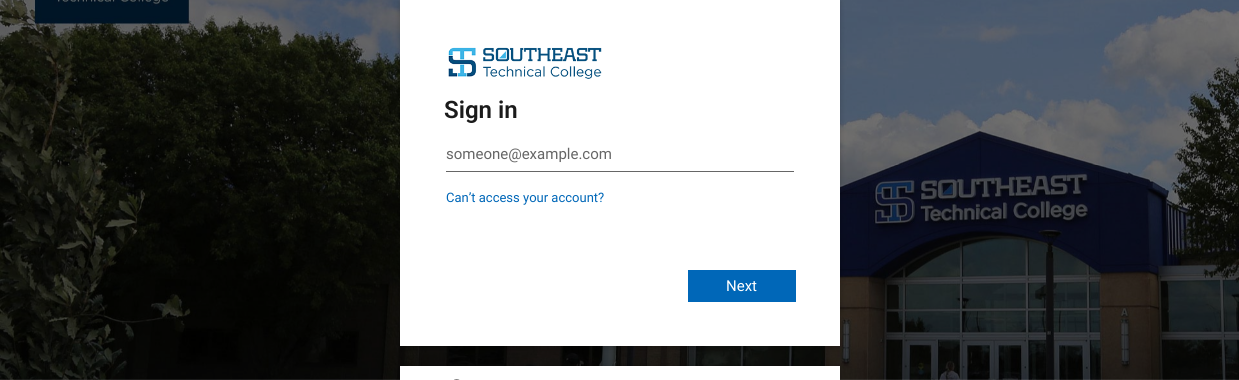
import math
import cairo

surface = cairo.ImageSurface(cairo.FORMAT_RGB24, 1239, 380)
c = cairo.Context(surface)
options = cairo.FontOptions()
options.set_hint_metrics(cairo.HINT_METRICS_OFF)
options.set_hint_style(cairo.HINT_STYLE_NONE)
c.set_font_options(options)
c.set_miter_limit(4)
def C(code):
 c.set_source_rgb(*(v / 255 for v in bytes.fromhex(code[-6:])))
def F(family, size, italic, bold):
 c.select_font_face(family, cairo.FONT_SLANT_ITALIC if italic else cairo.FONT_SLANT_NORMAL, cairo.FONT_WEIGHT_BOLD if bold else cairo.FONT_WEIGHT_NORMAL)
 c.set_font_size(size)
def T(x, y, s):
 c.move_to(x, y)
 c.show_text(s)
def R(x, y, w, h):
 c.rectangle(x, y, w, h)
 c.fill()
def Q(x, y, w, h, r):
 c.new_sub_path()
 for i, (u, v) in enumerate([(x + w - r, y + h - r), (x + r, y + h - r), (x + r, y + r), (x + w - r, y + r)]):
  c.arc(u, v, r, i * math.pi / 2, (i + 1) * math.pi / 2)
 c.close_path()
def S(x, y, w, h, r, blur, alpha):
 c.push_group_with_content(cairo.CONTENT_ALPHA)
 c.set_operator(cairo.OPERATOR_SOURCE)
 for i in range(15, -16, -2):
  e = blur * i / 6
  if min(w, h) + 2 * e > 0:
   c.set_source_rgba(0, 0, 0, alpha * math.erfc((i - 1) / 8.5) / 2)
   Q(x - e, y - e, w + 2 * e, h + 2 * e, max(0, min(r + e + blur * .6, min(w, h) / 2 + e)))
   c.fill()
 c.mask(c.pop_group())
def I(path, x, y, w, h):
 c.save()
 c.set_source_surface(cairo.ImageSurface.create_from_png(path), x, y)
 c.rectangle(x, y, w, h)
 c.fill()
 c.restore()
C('ffffff')
c.paint()
I('1.png',0,0,1239,380)
C('000000')
S(400,2,440,346,0,3,.2)
C('ffffff')
R(400,0,440,346)
I('2.png',448,47,154,32)
F('Roboto SemiBold',24,0,0)
C('1b1b1b')
T(444,118,'Sign in')
C('666666')
R(446,171,348,1)
F('Roboto',15,0,0)
T(446,159,'someone@example.com')
F('Roboto',13,0,0)
C('0067b8')
T(446,202,'Can’t access your account?')
R(688,270,108,32)
F('Roboto',15,0,0)
C('ffffff')
T(726,291,'Next')
C('000000')
S(400,368,440,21,0,3,.2)
C('ffffff')
R(400,366,440,14)
I('3.png',454,379,6,1)
surface.write_to_png('o.png')
